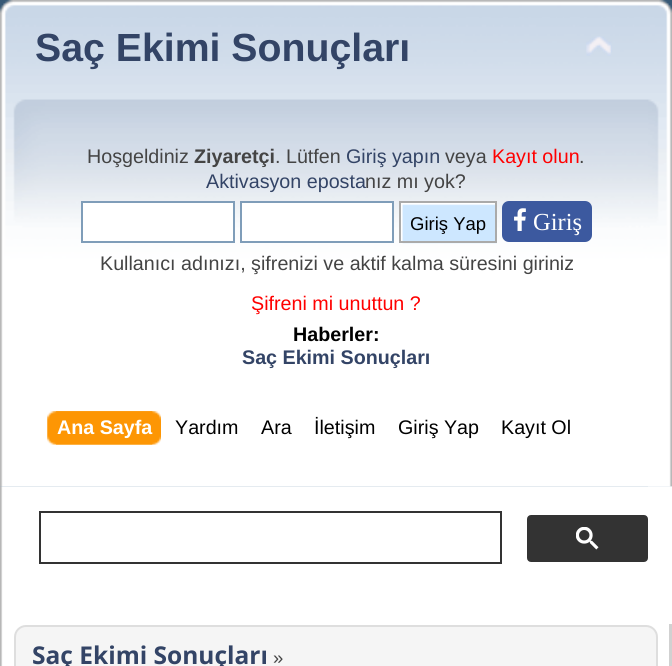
import math
import cairo

surface = cairo.ImageSurface(cairo.FORMAT_RGB24, 672, 666)
c = cairo.Context(surface)
options = cairo.FontOptions()
options.set_hint_metrics(cairo.HINT_METRICS_OFF)
options.set_hint_style(cairo.HINT_STYLE_NONE)
c.set_font_options(options)
c.set_miter_limit(4)
def C(code):
 c.set_source_rgb(*(v / 255 for v in bytes.fromhex(code[-6:])))
def F(family, size, italic, bold):
 c.select_font_face(family, cairo.FONT_SLANT_ITALIC if italic else cairo.FONT_SLANT_NORMAL, cairo.FONT_WEIGHT_BOLD if bold else cairo.FONT_WEIGHT_NORMAL)
 c.set_font_size(size)
def T(x, y, s):
 c.move_to(x, y)
 c.show_text(s)
def R(x, y, w, h):
 c.rectangle(x, y, w, h)
 c.fill()
def Q(x, y, w, h, r):
 c.new_sub_path()
 for i, (u, v) in enumerate([(x + w - r, y + h - r), (x + r, y + h - r), (x + r, y + r), (x + w - r, y + r)]):
  c.arc(u, v, r, i * math.pi / 2, (i + 1) * math.pi / 2)
 c.close_path()
def I(path, x, y, w, h):
 c.save()
 c.set_source_surface(cairo.ImageSurface.create_from_png(path), x, y)
 c.rectangle(x, y, w, h)
 c.fill()
 c.restore()
C('ffffff')
c.paint()
I('1.png',0,486,672,1)
I('2.png',0,0,672,487)
I('3.png',648,0,24,487)
F('Liberation Sans',39.25,0,1)
C('334466')
T(35,61,'Saç Ekimi Sonuçları')
I('4.png',586,36,26,20)
F('Liberation Sans',19.7,0,0)
C('444444')
T(87,163,'Hoşgeldiniz')
F('Liberation Sans',19.7,0,1)
T(194,163,'Ziyaretçi')
F('Liberation Sans',19.7,0,0)
T(275,163,'. Lütfen')
C('334466')
T(346,163,'Giriş yapın')
C('444444')
T(445,163,'veya')
C('ff0000')
T(492,163,'Kayıt olun')
C('444444')
T(579,163,'.')
C('334466')
T(206,188,'Aktivasyon eposta')
C('444444')
T(365,188,'nız mı yok?')
C('ffffff')
c.rectangle(82,202,152,40)
c.fill_preserve()
C('7f9db9')
c.stroke()
C('ffffff')
c.rectangle(241,202,152,40)
c.fill_preserve()
C('7f9db9')
c.stroke()
I('5.png',400,203,97,41)
c.rectangle(400,202,96,40)
C('aaaaaa')
c.stroke()
F('Liberation Sans',18.5,0,0)
C('000000')
T(410,230,'Giriş Yap')
C('3c599f')
Q(502,201,90,41,7)
c.fill()
I('6.png',514,208,12,23)
F('Liberation Serif',24.5,0,0)
C('ffffff')
T(533,230,'Giriş')
F('Liberation Sans',19.7,0,0)
C('444444')
T(100,270,'Kullanıcı adınızı, şifrenizi ve aktif kalma süresini giriniz')
C('ff0000')
T(251,310,'Şifreni mi unuttun ?')
F('Liberation Sans',19.7,0,1)
C('000000')
T(293,341,'Haberler:')
C('334466')
T(242,364,'Saç Ekimi Sonuçları')
I('7.png',56,411,105,34)
I('8.png',47,411,106,34)
C('ffffff')
T(57,434,'Ana Sayfa')
F('Liberation Sans',19.7,0,0)
C('000000')
T(175,434,'Yardım')
T(261,434,'Ara')
T(314,434,'İletişim')
T(398,434,'Giriş Yap')
T(501,434,'Kayıt Ol')
I('9.png',0,486,672,180)
c.rectangle(40,512,461,51)
C('333333')
c.stroke()
Q(528,516,119,45,3)
c.fill_preserve()
c.stroke()
I('10.png',576,527,23,23)
C('d1d1d1')
R(669,624,3,42)
C('f5f5f5')
Q(15,626,642,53,11)
c.fill_preserve()
C('dedede')
c.stroke()
F('Open Sans',24.5,0,1)
C('334466')
T(32,664,'Saç Ekimi Sonuçları')
F('Liberation Sans',18.5,0,0)
C('444444')
T(273,664,'»')
surface.write_to_png('o.png')
